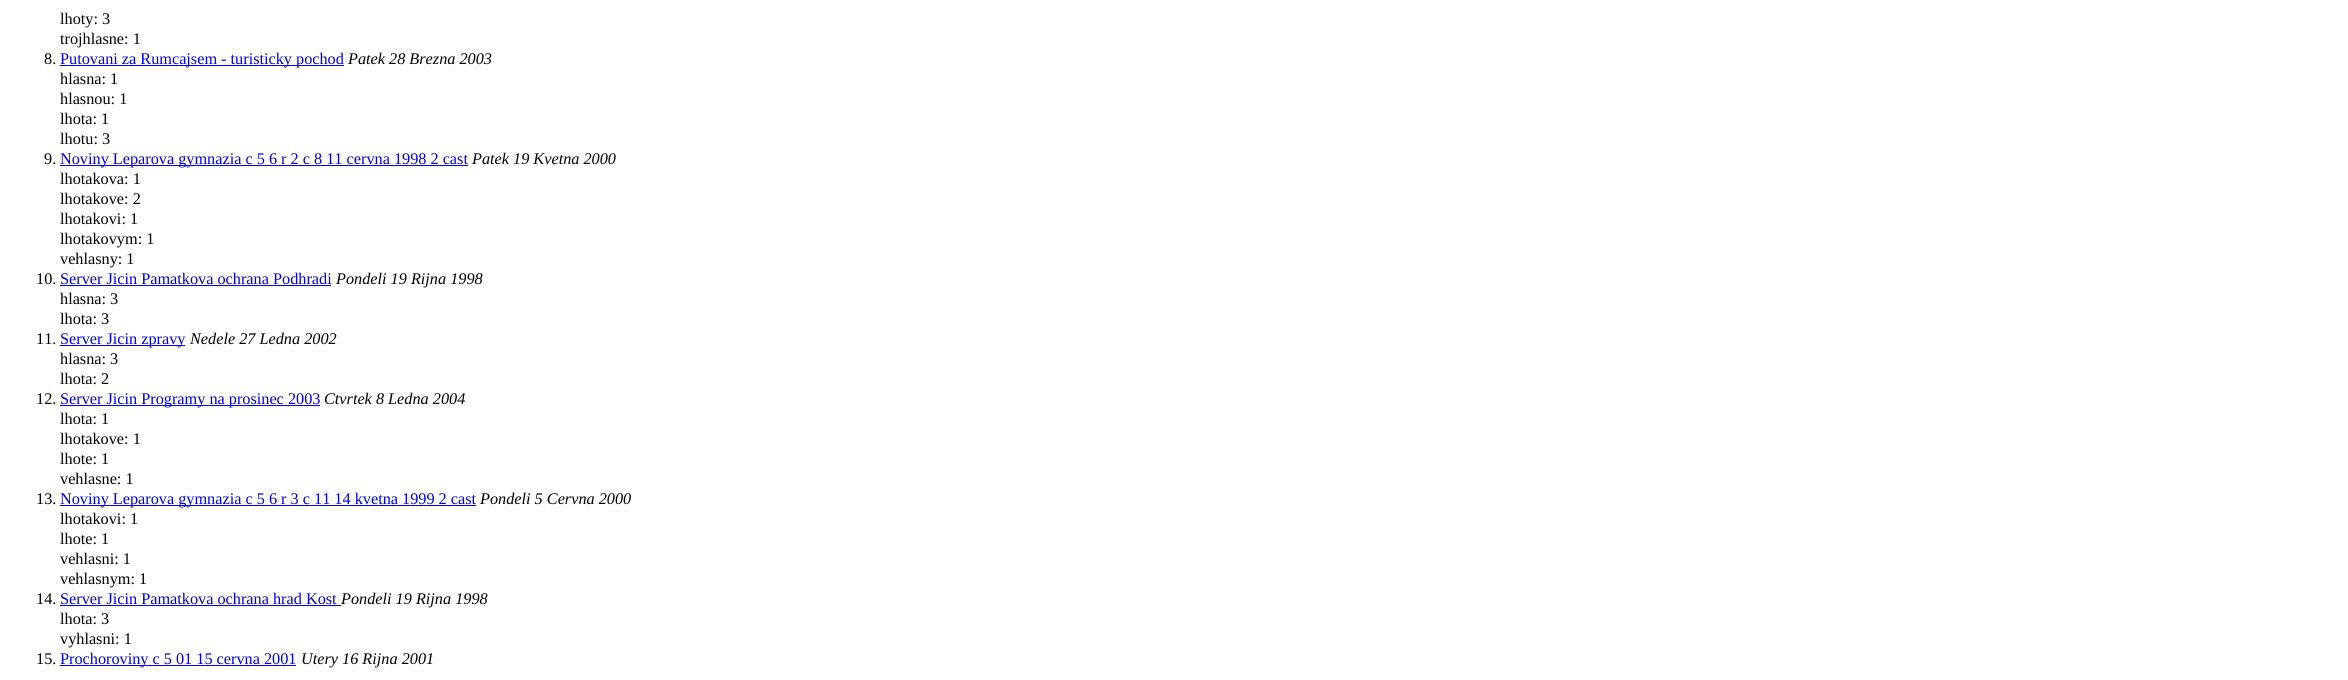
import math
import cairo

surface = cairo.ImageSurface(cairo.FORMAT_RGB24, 2348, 680)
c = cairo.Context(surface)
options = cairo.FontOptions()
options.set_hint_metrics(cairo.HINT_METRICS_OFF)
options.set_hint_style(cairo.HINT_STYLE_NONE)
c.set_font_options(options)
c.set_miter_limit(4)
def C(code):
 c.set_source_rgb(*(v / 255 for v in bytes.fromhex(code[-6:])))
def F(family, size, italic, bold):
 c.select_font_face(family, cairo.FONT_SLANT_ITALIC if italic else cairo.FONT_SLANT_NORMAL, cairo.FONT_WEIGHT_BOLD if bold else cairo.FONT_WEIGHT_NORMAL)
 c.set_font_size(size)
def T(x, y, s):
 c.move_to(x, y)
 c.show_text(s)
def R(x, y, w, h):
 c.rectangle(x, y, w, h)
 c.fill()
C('ffffff')
c.paint()
F('Liberation Serif',16.25,0,0)
C('000000')
T(60,24,'lhoty: 3')
T(60,44,'trojhlasne: 1')
T(44,64,'8.')
C('0000ee')
R(60,65,284,1)
T(60,64,'Putovani za Rumcajsem - turisticky pochod')
F('Liberation Serif',16.25,1,0)
C('000000')
T(348,64,'Patek 28 Brezna 2003')
F('Liberation Serif',16.25,0,0)
T(60,84,'hlasna: 1')
T(60,104,'hlasnou: 1')
T(60,124,'lhota: 1')
T(60,144,'lhotu: 3')
T(44,164,'9.')
C('0000ee')
R(60,165,408,1)
T(60,164,'Noviny Leparova gymnazia c 5 6 r 2 c 8 11 cervna 1998 2 cast')
F('Liberation Serif',16.25,1,0)
C('000000')
T(472,164,'Patek 19 Kvetna 2000')
F('Liberation Serif',16.25,0,0)
T(60,184,'lhotakova: 1')
T(60,204,'lhotakove: 2')
T(60,224,'lhotakovi: 1')
T(60,244,'lhotakovym: 1')
T(60,264,'vehlasny: 1')
T(36,284,'10.')
C('0000ee')
T(60,284,'Server Jicin Pamatkova ochrana Podhradi')
R(60,285,271,1)
F('Liberation Serif',16.25,1,0)
C('000000')
T(336,284,'Pondeli 19 Rijna 1998')
F('Liberation Serif',16.25,0,0)
T(60,304,'hlasna: 3')
T(60,324,'lhota: 3')
T(36,344,'11.')
C('0000ee')
R(60,345,125,1)
T(60,344,'Server Jicin zpravy')
F('Liberation Serif',16.25,1,0)
C('000000')
T(190,344,'Nedele 27 Ledna 2002')
F('Liberation Serif',16.25,0,0)
T(60,364,'hlasna: 3')
T(60,384,'lhota: 2')
T(36,404,'12.')
C('0000ee')
R(60,405,260,1)
T(60,404,'Server Jicin Programy na prosinec 2003')
F('Liberation Serif',16.25,1,0)
C('000000')
T(324,404,'Ctvrtek 8 Ledna 2004')
F('Liberation Serif',16.25,0,0)
T(60,424,'lhota: 1')
T(60,444,'lhotakove: 1')
T(60,464,'lhote: 1')
T(60,484,'vehlasne: 1')
T(36,504,'13.')
C('0000ee')
R(60,505,416,1)
T(60,504,'Noviny Leparova gymnazia c 5 6 r 3 c 11 14 kvetna 1999 2 cast')
F('Liberation Serif',16.25,1,0)
C('000000')
T(480,504,'Pondeli 5 Cervna 2000')
F('Liberation Serif',16.25,0,0)
T(60,524,'lhotakovi: 1')
T(60,544,'lhote: 1')
T(60,564,'vehlasni: 1')
T(60,584,'vehlasnym: 1')
T(36,604,'14.')
C('0000ee')
T(60,604,'Server Jicin Pamatkova ochrana hrad Kost')
R(60,605,281,1)
F('Liberation Serif',16.25,1,0)
C('000000')
T(341,604,'Pondeli 19 Rijna 1998')
F('Liberation Serif',16.25,0,0)
T(60,624,'lhota: 3')
T(60,644,'vyhlasni: 1')
T(36,664,'15.')
C('0000ee')
R(60,665,236,1)
T(60,664,'Prochoroviny c 5 01 15 cervna 2001')
F('Liberation Serif',16.25,1,0)
C('000000')
T(301,664,'Utery 16 Rijna 2001')
surface.write_to_png('o.png')
